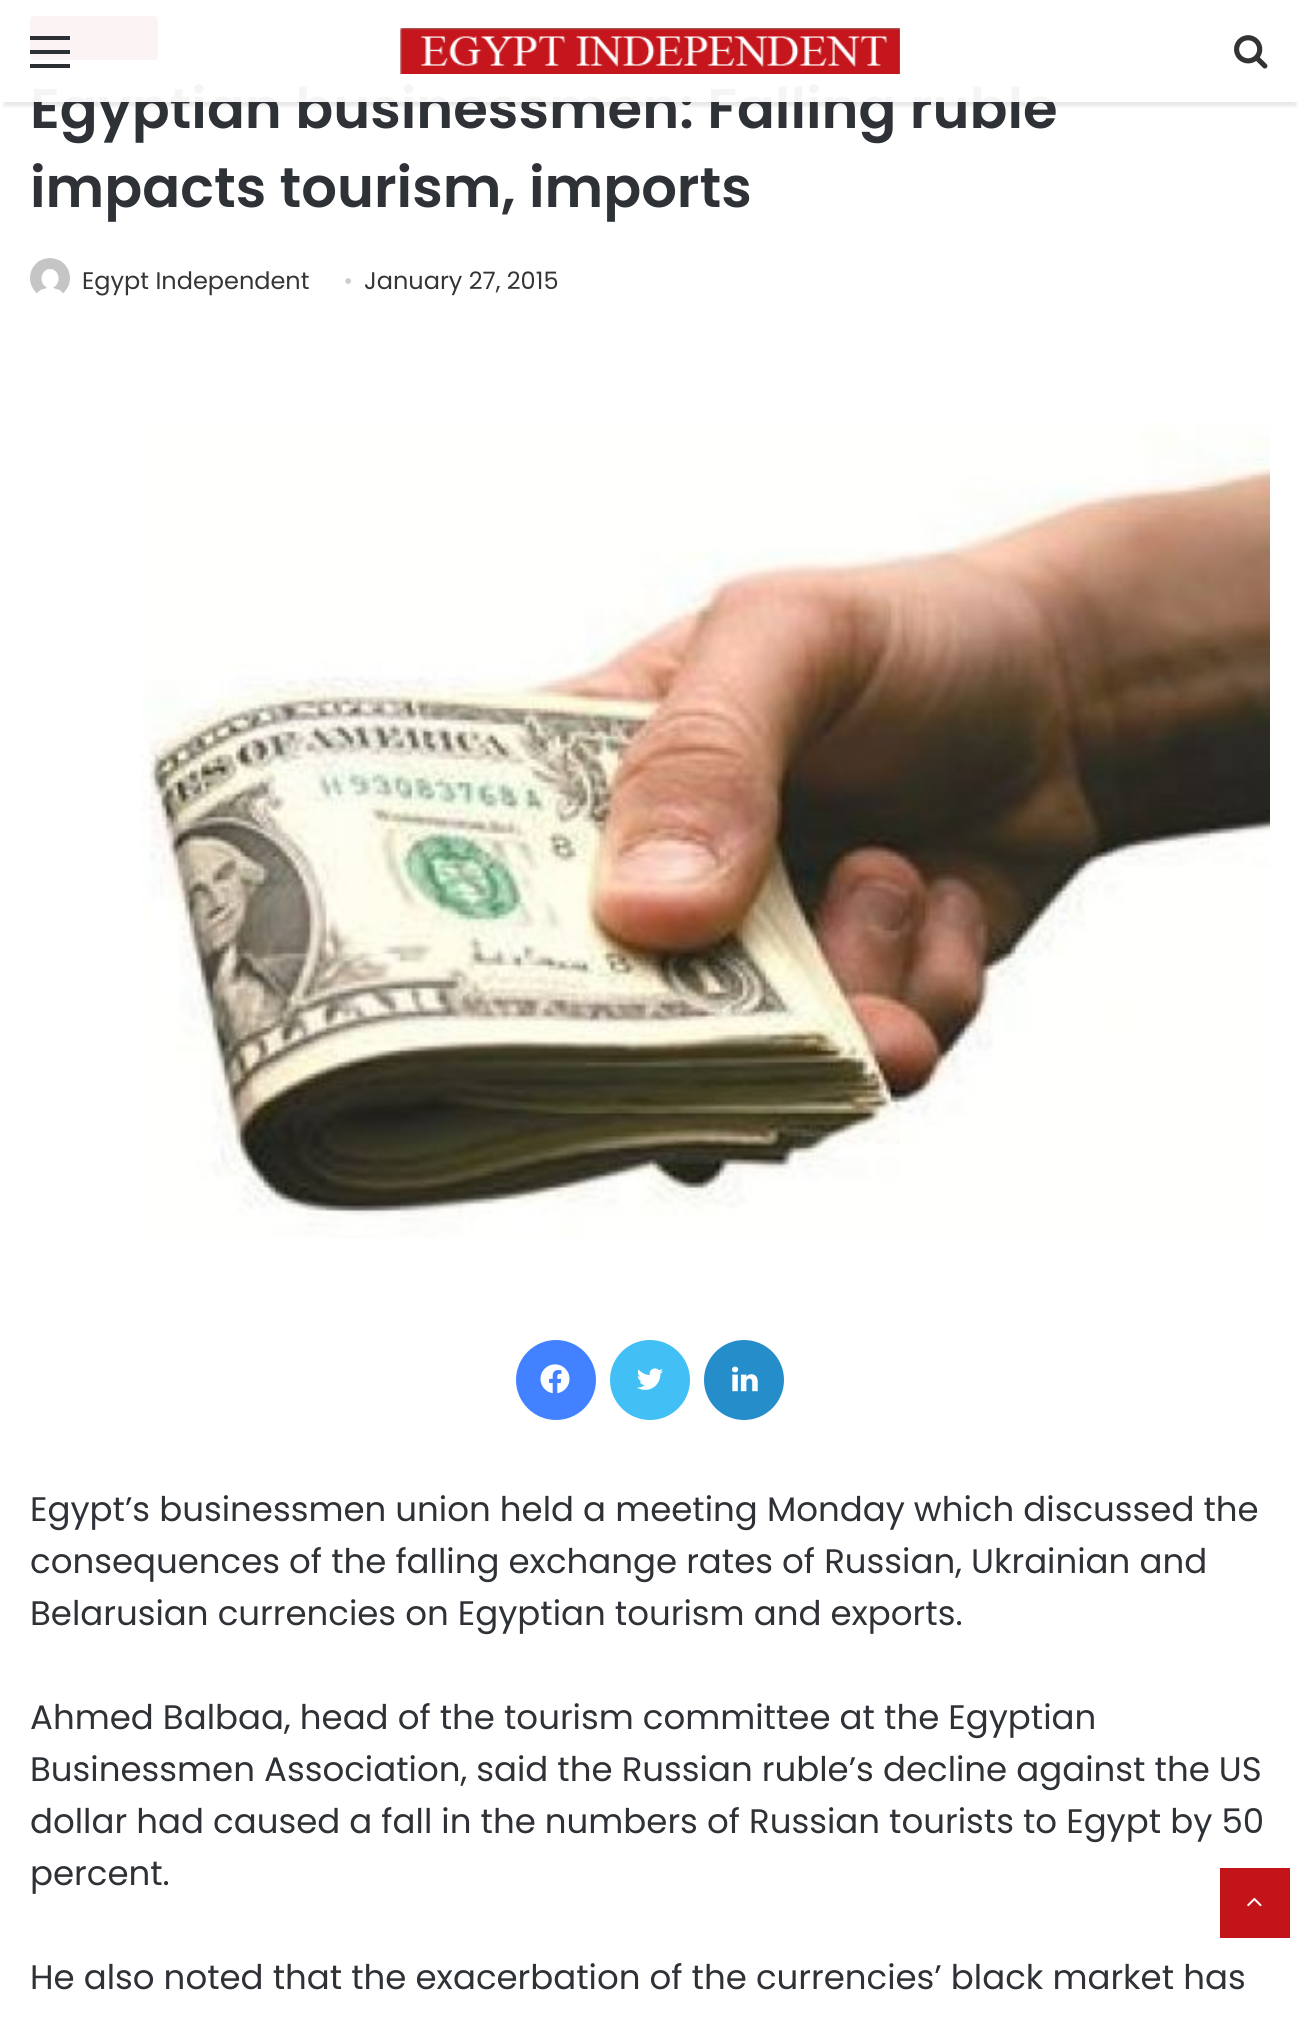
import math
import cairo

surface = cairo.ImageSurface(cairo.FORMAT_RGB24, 1299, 2027)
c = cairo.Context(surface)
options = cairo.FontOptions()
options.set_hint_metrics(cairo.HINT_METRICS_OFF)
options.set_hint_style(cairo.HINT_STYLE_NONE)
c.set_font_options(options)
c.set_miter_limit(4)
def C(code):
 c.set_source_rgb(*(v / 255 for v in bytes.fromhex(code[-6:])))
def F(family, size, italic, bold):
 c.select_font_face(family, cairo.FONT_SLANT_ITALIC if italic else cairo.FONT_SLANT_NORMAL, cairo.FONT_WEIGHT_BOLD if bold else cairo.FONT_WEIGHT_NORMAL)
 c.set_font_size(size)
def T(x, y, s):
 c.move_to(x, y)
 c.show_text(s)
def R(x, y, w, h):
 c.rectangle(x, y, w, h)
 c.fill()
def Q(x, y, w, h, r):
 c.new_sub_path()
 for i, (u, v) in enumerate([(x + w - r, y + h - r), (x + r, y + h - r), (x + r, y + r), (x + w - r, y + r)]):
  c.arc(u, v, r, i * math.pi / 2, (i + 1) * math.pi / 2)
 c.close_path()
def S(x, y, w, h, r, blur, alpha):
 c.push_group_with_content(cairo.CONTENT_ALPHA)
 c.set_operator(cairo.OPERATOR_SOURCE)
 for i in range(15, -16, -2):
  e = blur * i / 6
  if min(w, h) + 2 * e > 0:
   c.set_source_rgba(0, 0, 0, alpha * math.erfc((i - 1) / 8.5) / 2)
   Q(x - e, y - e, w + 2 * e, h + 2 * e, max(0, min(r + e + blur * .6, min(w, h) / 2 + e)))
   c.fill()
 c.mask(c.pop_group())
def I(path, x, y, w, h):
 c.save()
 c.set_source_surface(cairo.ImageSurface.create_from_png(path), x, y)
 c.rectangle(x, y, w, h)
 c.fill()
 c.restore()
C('ffffff')
c.paint()
C('c4161b')
Q(30,16,128,44,4)
c.fill()
c.save()
c.rectangle(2,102,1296,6)
c.clip()
C('000000')
S(4,12,1292,94,0,2,.1)
c.restore()
F('Poppins SemiBold',56,0,0)
C('2e3136')
T(30,128,'Egyptian businessmen: Falling ruble')
c.set_source_rgba(1,1,1,0.95)
R(30,16,1023,86)
C('2c2f34')
R(30,50,40,4)
R(30,36,40,4)
R(30,64,40,4)
I('1.png',400,28,500,46)
I('2.png',1234,35,34,34)
C('2e3136')
T(30,207,'impacts tourism, imports')
I('3.png',30,258,40,36)
F('Poppins',24,0,0)
C('353535')
T(82,289,'Egypt Independent')
F('Liberation Serif',24,0,0)
C('cdcdcd')
T(344,289,'•')
F('Poppins',24,0,0)
C('353535')
T(364,289,'January 27, 2015')
I('4.png',141,422,1129,816)
C('4281ff')
c.arc(556,1380,40,0,2 * math.pi)
c.fill()
I('5.png',540,1364,30,30)
C('42c0f5')
c.arc(650,1380,40,0,2 * math.pi)
c.fill()
I('6.png',637,1368,26,22)
C('258dc9')
c.arc(744,1380,40,0,2 * math.pi)
c.fill()
I('7.png',732,1366,26,26)
F('Poppins',34,0,0)
C('2e3136')
T(30,1521,'Egypt’s businessmen union held a meeting Monday which discussed the')
T(30,1573,'consequences of the falling exchange rates of Russian, Ukrainian and')
T(30,1625,'Belarusian currencies on Egyptian tourism and exports.')
T(30,1729,'Ahmed Balbaa, head of the tourism committee at the Egyptian')
T(30,1781,'Businessmen Association, said the Russian ruble’s decline against the US')
T(30,1833,'dollar had caused a fall in the numbers of Russian tourists to Egypt by 50')
T(30,1885,'percent.')
T(30,1989,'He also noted that the exacerbation of the currencies’ black market has')
C('c31419')
R(1220,1868,70,70)
I('8.png',1247,1897,15,10)
surface.write_to_png('o.png')
